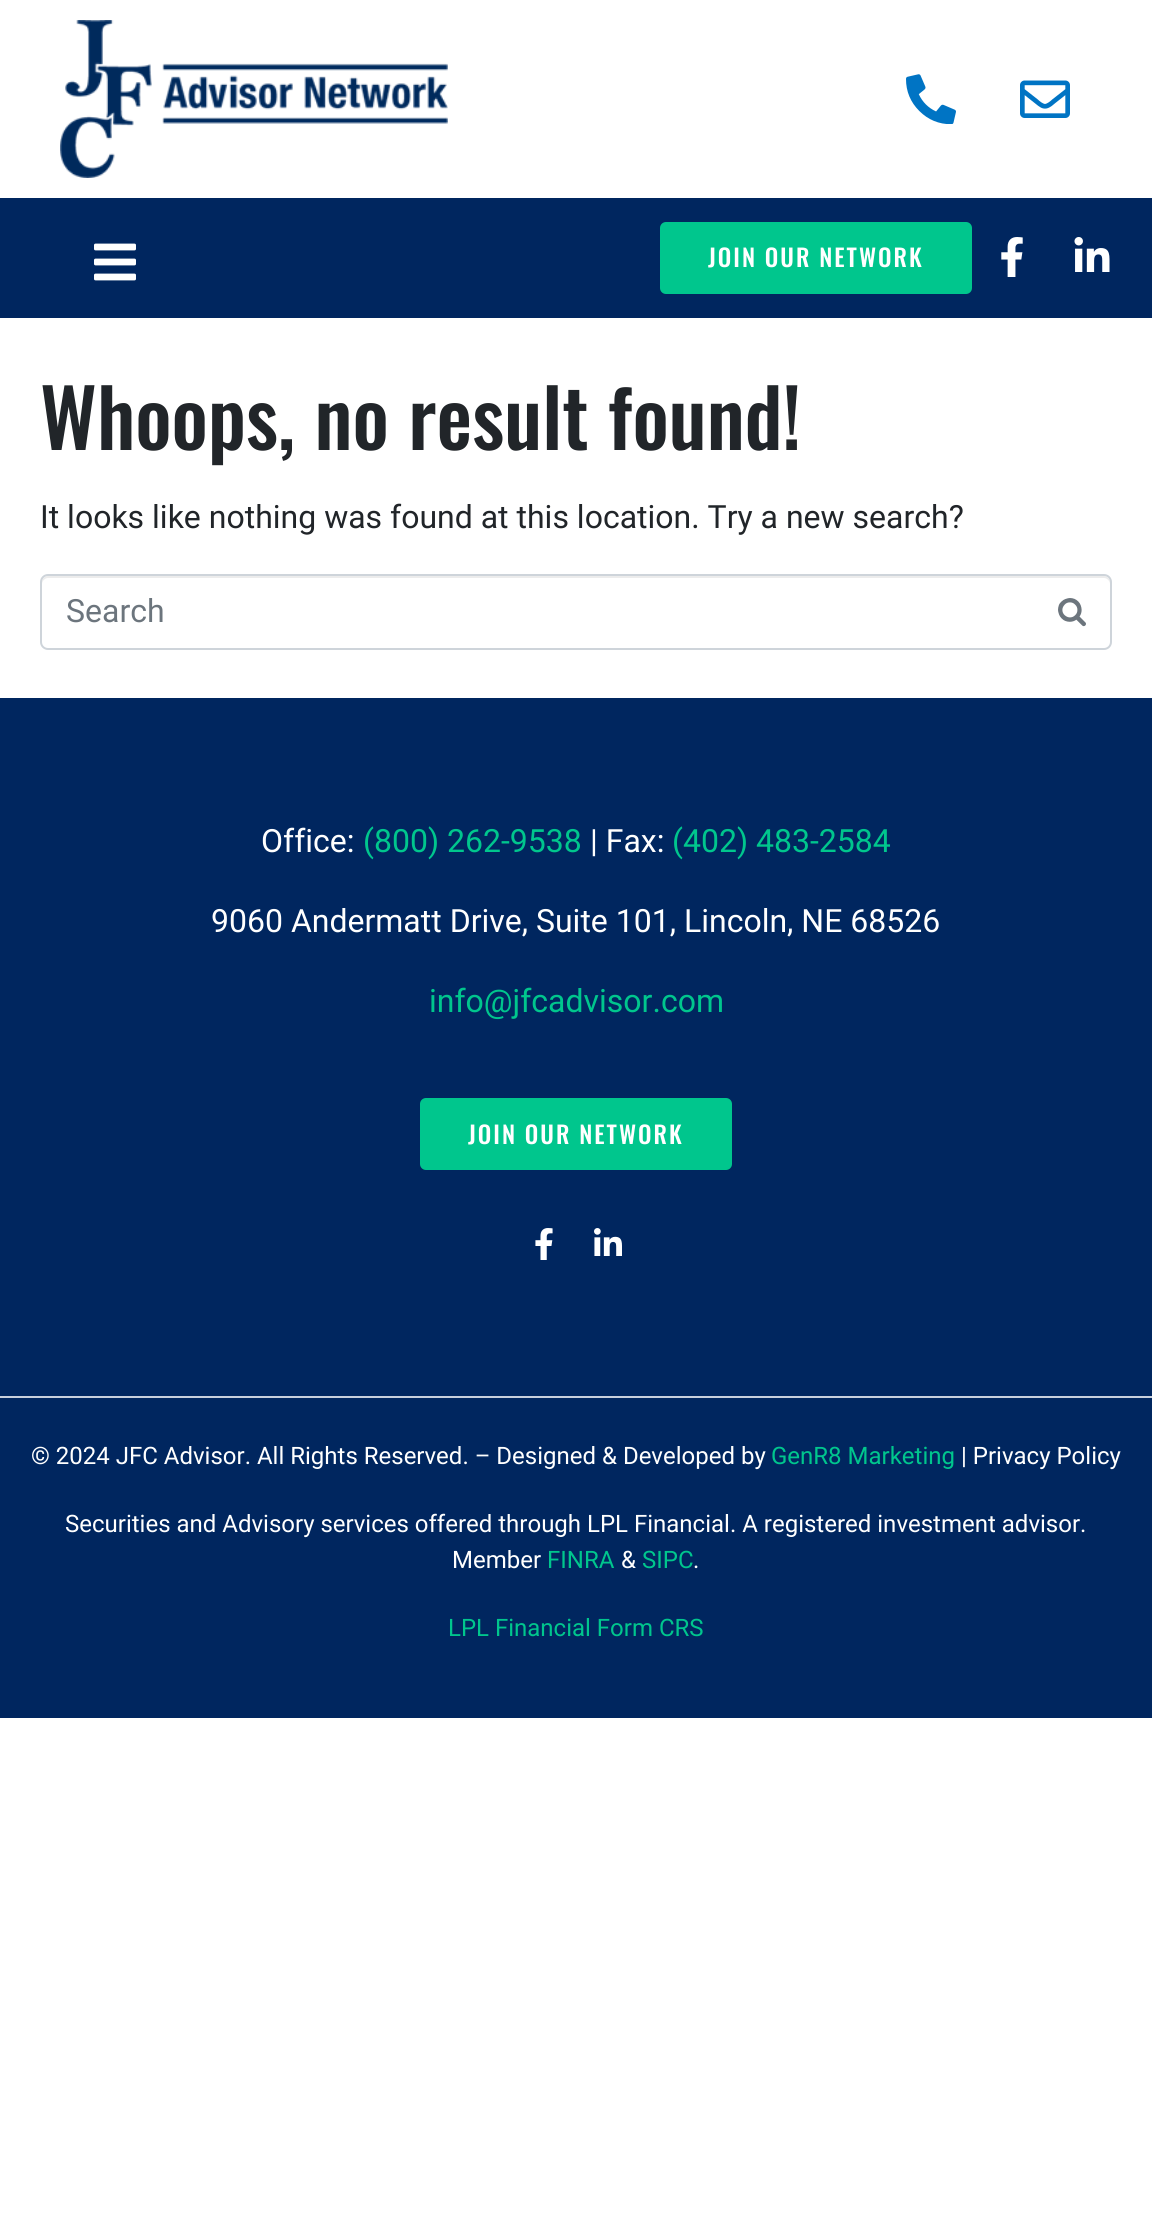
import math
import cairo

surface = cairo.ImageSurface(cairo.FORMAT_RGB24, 1152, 2221)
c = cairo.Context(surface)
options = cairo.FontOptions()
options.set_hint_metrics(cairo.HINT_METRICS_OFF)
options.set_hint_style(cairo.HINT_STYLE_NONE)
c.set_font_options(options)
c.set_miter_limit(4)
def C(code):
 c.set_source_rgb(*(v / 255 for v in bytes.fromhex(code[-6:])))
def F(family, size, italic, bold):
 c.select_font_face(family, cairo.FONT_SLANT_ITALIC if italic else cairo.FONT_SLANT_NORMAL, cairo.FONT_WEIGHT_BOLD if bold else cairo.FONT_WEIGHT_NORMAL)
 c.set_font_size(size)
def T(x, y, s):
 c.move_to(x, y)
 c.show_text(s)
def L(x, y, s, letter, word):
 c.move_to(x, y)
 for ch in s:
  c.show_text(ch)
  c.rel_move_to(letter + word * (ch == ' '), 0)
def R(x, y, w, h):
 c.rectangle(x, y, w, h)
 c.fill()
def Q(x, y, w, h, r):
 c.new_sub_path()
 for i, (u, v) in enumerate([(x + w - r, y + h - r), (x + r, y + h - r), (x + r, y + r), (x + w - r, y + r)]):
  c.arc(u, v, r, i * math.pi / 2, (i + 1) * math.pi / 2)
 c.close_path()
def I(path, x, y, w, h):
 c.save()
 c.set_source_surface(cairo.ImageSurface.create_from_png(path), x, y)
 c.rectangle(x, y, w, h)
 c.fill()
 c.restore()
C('ffffff')
c.paint()
I('1.png',60,20,388,158)
I('2.png',906,74,50,50)
I('3.png',1020,80,50,38)
C('00265f')
R(0,198,1152,120)
I('4.png',94,243,42,38)
C('00c68d')
Q(660,222,312,72,6)
c.fill()
F('Oswald Medium',24,0,0)
C('ffffff')
L(708,267,'JOIN OUR NETWORK',2,0)
I('5.png',1001,237,22,40)
I('6.png',1074,237,36,35)
F('Oswald Medium',80,0,0)
C('212529')
T(40,450,'Whoops, no result found!')
F('Roboto',32,0,0)
T(40,528,'It looks like nothing was found at this location. Try a new search?')
C('ececec')
c.new_path()
c.move_to(48,578)
c.line_to(1104,578)
c.curve_to(1107,578,1110,581,1110,584)
c.line_to(1110,582)
c.curve_to(1110,579,1107,576,1104,576)
c.line_to(48,576)
c.curve_to(45,576,42,579,42,582)
c.line_to(42,584)
c.curve_to(42,581,45,578,48,578)
c.close_path()
c.fill()
Q(41,575,1070,74,7)
C('ced4da')
c.stroke()
C('6c757d')
T(66,622,'Search')
I('7.png',1058,598,28,29)
C('00265f')
R(0,698,1152,698)
C('ffffff')
T(261,852,'Office:')
C('00c68d')
T(363,852,'(800) 262-9538')
C('ffffff')
T(590,852,'| Fax:')
C('00c68d')
T(672,852,'(402) 483-2584')
C('ffffff')
T(211,932,'9060 Andermatt Drive, Suite 101, Lincoln, NE 68526')
C('00c68d')
T(429,1012,'info@jfcadvisor.com')
Q(420,1098,312,72,6)
c.fill()
F('Oswald Medium',24,0,0)
C('ffffff')
L(468,1144,'JOIN OUR NETWORK',2,0)
I('8.png',535,1228,18,32)
I('9.png',594,1228,28,28)
C('00265f')
R(0,1398,1152,320)
C('c7cfdc')
R(0,1396,1152,2)
F('Roboto',24,0,0)
C('ffffff')
T(31,1464,'© 2024 JFC Advisor. All Rights Reserved. – Designed & Developed by')
C('00c68d')
T(771,1464,'GenR8 Marketing')
C('ffffff')
T(961,1464,'| Privacy Policy')
T(65,1532,'Securities and Advisory services offered through LPL Financial. A registered investment advisor.')
T(452,1568,'Member')
C('00c68d')
T(547,1568,'FINRA')
C('ffffff')
T(621,1568,'&')
C('00c68d')
T(642,1568,'SIPC')
C('ffffff')
T(693,1568,'.')
C('00c68d')
T(448,1636,'LPL Financial Form CRS')
surface.write_to_png('o.png')
